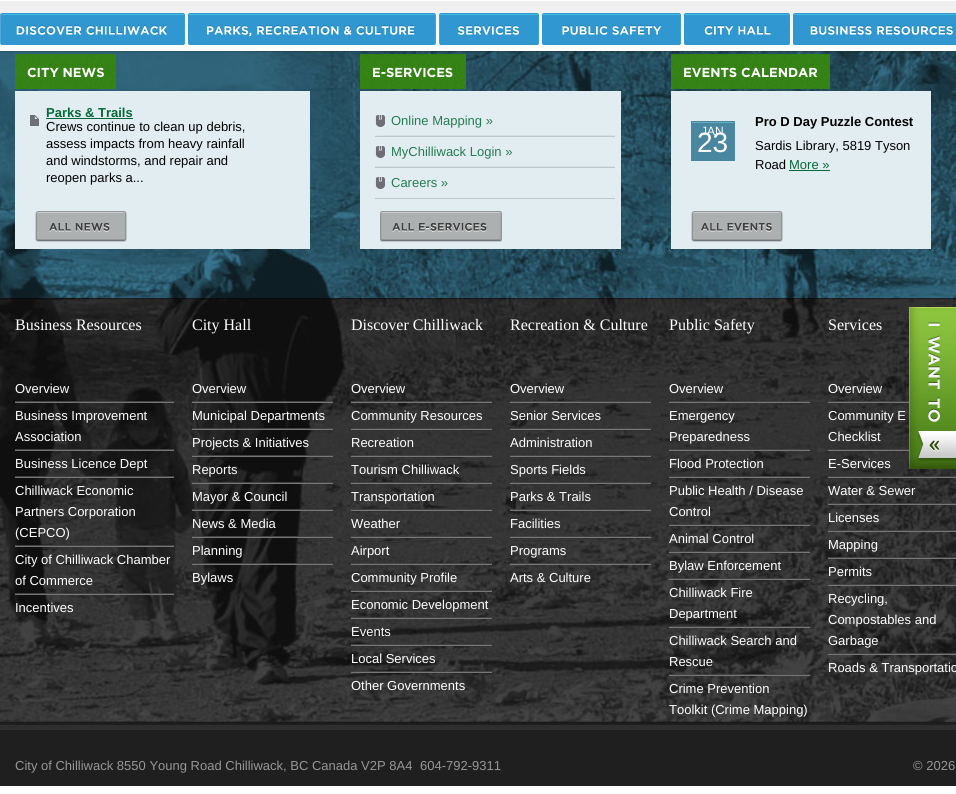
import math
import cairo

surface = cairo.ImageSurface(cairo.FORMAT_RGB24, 956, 794)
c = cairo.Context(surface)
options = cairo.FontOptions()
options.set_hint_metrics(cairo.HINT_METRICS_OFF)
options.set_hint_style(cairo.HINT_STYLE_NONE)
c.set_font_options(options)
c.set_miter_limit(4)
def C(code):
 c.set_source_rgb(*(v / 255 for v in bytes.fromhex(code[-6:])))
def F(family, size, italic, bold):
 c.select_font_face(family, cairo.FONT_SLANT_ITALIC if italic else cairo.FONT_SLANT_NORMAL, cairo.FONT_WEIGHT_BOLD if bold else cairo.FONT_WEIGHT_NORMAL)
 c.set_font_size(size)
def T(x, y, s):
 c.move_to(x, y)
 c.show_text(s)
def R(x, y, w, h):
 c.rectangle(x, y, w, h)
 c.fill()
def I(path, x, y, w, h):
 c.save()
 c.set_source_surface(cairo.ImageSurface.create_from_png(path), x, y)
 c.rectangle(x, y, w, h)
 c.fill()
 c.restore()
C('ffffff')
c.paint()
I('9.png',0,51,956,674)
I('1.png',0,1,956,52)
I('2.png',0,13,185,32)
I('3.png',188,13,248,32)
I('4.png',439,13,100,32)
I('5.png',542,13,139,32)
I('6.png',684,13,106,32)
I('7.png',793,13,163,32)
I('8.png',0,725,956,61)
I('10.png',15,54,101,35)
F('Gotham',13,0,1)
C('ffffff')
T(27,77,'CITY NEWS')
C('e2edf1')
R(15,91,295,158)
I('11.png',30,115,9,11)
F('Liberation Sans',13,0,1)
C('056839')
T(46,117,'Parks & Trails')
R(46,118,87,1)
F('Liberation Sans',13,0,0)
C('000000')
T(46,131,'Crews continue to clean up debris,')
T(46,148,'assess impacts from heavy rainfall')
T(46,165,'and windstorms, and repair and')
T(46,182,'reopen parks a...')
I('12.png',35,211,92,31)
I('13.png',360,54,106,35)
F('Gotham',13,0,1)
C('ffffff')
T(372,77,'E-SERVICES')
C('e2edf1')
R(360,91,261,158)
I('14.png',375,135,240,1)
I('15.png',375,115,10,12)
C('bdc9c9')
R(375,136,240,1)
F('Liberation Sans',13,0,0)
C('257b52')
T(391,125,'Online Mapping »')
I('14.png',375,166,240,1)
I('15.png',375,146,10,12)
C('bdc9c9')
R(375,167,240,1)
C('257b52')
T(391,156,'MyChilliwack Login »')
I('15.png',375,177,10,12)
C('bdc9c9')
R(375,198,240,1)
C('257b52')
T(391,187,'Careers »')
I('16.png',380,211,122,31)
I('17.png',671,54,159,35)
F('Gotham',13,0,1)
C('ffffff')
T(683,77,'EVENTS CALENDAR')
C('e2edf1')
R(671,91,260,158)
I('18.png',691,121,44,12)
C('49869f')
R(691,133,44,28)
F('Liberation Sans',12,0,0)
C('ffffff')
T(701,135,'JAN')
F('Liberation Sans',28,0,0)
T(697,152,'23')
F('Liberation Sans',13,0,1)
C('000000')
T(755,126,'Pro D Day Puzzle Contest')
F('Liberation Sans',13,0,0)
T(755,150,'Sardis Library, 5819 Tyson')
T(755,169,'Road')
C('056839')
T(789,169,'More »')
R(789,170,41,1)
I('19.png',691,211,92,31)
F('Liberation Serif',16,0,0)
C('ffffff')
T(15,330,'Business Resources')
C('424242')
R(15,401,159,1)
F('Liberation Sans',13,0,0)
C('ffffff')
T(15,393,'Overview')
C('787676')
R(15,402,159,1)
C('424242')
R(15,449,159,1)
C('ffffff')
T(15,420,'Business Improvement')
T(15,441,'Association')
C('787676')
R(15,450,159,1)
C('424242')
R(15,476,159,1)
C('ffffff')
T(15,468,'Business Licence Dept')
C('787676')
R(15,477,159,1)
C('424242')
R(15,545,159,1)
C('ffffff')
T(15,495,'Chilliwack Economic')
T(15,516,'Partners Corporation')
T(15,537,'(CEPCO)')
C('787676')
R(15,546,159,1)
C('424242')
R(15,593,159,1)
C('ffffff')
T(15,564,'City of Chilliwack Chamber')
T(15,585,'of Commerce')
C('787676')
R(15,594,159,1)
C('ffffff')
T(15,612,'Incentives')
F('Liberation Serif',16,0,0)
T(192,330,'City Hall')
C('424242')
R(192,401,141,1)
F('Liberation Sans',13,0,0)
C('ffffff')
T(192,393,'Overview')
C('787676')
R(192,402,141,1)
C('424242')
R(192,428,141,1)
C('ffffff')
T(192,420,'Municipal Departments')
C('787676')
R(192,429,141,1)
C('424242')
R(192,455,141,1)
C('ffffff')
T(192,447,'Projects & Initiatives')
C('787676')
R(192,456,141,1)
C('424242')
R(192,482,141,1)
C('ffffff')
T(192,474,'Reports')
C('787676')
R(192,483,141,1)
C('424242')
R(192,509,141,1)
C('ffffff')
T(192,501,'Mayor & Council')
C('787676')
R(192,510,141,1)
C('424242')
R(192,536,141,1)
C('ffffff')
T(192,528,'News & Media')
C('787676')
R(192,537,141,1)
C('424242')
R(192,563,141,1)
C('ffffff')
T(192,555,'Planning')
C('787676')
R(192,564,141,1)
C('ffffff')
T(192,582,'Bylaws')
F('Liberation Serif',16,0,0)
T(351,330,'Discover Chilliwack')
C('424242')
R(351,401,141,1)
F('Liberation Sans',13,0,0)
C('ffffff')
T(351,393,'Overview')
C('787676')
R(351,402,141,1)
C('424242')
R(351,428,141,1)
C('ffffff')
T(351,420,'Community Resources')
C('787676')
R(351,429,141,1)
C('424242')
R(351,455,141,1)
C('ffffff')
T(351,447,'Recreation')
C('787676')
R(351,456,141,1)
C('424242')
R(351,482,141,1)
C('ffffff')
T(351,474,'Tourism Chilliwack')
C('787676')
R(351,483,141,1)
C('424242')
R(351,509,141,1)
C('ffffff')
T(351,501,'Transportation')
C('787676')
R(351,510,141,1)
C('424242')
R(351,536,141,1)
C('ffffff')
T(351,528,'Weather')
C('787676')
R(351,537,141,1)
C('424242')
R(351,563,141,1)
C('ffffff')
T(351,555,'Airport')
C('787676')
R(351,564,141,1)
C('424242')
R(351,590,141,1)
C('ffffff')
T(351,582,'Community Profile')
C('787676')
R(351,591,141,1)
C('424242')
R(351,617,141,1)
C('ffffff')
T(351,609,'Economic Development')
C('787676')
R(351,618,141,1)
C('424242')
R(351,644,141,1)
C('ffffff')
T(351,636,'Events')
C('787676')
R(351,645,141,1)
C('424242')
R(351,671,141,1)
C('ffffff')
T(351,663,'Local Services')
C('787676')
R(351,672,141,1)
C('ffffff')
T(351,690,'Other Governments')
F('Liberation Serif',16,0,0)
T(510,330,'Recreation & Culture')
C('424242')
R(510,401,141,1)
F('Liberation Sans',13,0,0)
C('ffffff')
T(510,393,'Overview')
C('787676')
R(510,402,141,1)
C('424242')
R(510,428,141,1)
C('ffffff')
T(510,420,'Senior Services')
C('787676')
R(510,429,141,1)
C('424242')
R(510,455,141,1)
C('ffffff')
T(510,447,'Administration')
C('787676')
R(510,456,141,1)
C('424242')
R(510,482,141,1)
C('ffffff')
T(510,474,'Sports Fields')
C('787676')
R(510,483,141,1)
C('424242')
R(510,509,141,1)
C('ffffff')
T(510,501,'Parks & Trails')
C('787676')
R(510,510,141,1)
C('424242')
R(510,536,141,1)
C('ffffff')
T(510,528,'Facilities')
C('787676')
R(510,537,141,1)
C('424242')
R(510,563,141,1)
C('ffffff')
T(510,555,'Programs')
C('787676')
R(510,564,141,1)
C('ffffff')
T(510,582,'Arts & Culture')
F('Liberation Serif',16,0,0)
T(669,330,'Public Safety')
C('424242')
R(669,401,141,1)
F('Liberation Sans',13,0,0)
C('ffffff')
T(669,393,'Overview')
C('787676')
R(669,402,141,1)
C('424242')
R(669,449,141,1)
C('ffffff')
T(669,420,'Emergency')
T(669,441,'Preparedness')
C('787676')
R(669,450,141,1)
C('424242')
R(669,476,141,1)
C('ffffff')
T(669,468,'Flood Protection')
C('787676')
R(669,477,141,1)
C('424242')
R(669,524,141,1)
C('ffffff')
T(669,495,'Public Health / Disease')
T(669,516,'Control')
C('787676')
R(669,525,141,1)
C('424242')
R(669,551,141,1)
C('ffffff')
T(669,543,'Animal Control')
C('787676')
R(669,552,141,1)
C('424242')
R(669,578,141,1)
C('ffffff')
T(669,570,'Bylaw Enforcement')
C('787676')
R(669,579,141,1)
C('424242')
R(669,626,141,1)
C('ffffff')
T(669,597,'Chilliwack Fire')
T(669,618,'Department')
C('787676')
R(669,627,141,1)
C('424242')
R(669,674,141,1)
C('ffffff')
T(669,645,'Chilliwack Search and')
T(669,666,'Rescue')
C('787676')
R(669,675,141,1)
C('ffffff')
T(669,693,'Crime Prevention')
T(669,714,'Toolkit (Crime Mapping)')
F('Liberation Serif',16,0,0)
T(828,330,'Services')
C('424242')
R(828,401,81,1)
F('Liberation Sans',13,0,0)
C('ffffff')
T(828,393,'Overview')
C('787676')
R(828,402,81,1)
C('424242')
R(828,449,81,1)
C('ffffff')
T(828,420,'Community E')
T(828,441,'Checklist')
C('787676')
R(828,450,81,1)
C('424242')
R(828,476,128,1)
C('ffffff')
T(828,468,'E-Services')
C('787676')
R(828,477,128,1)
C('424242')
R(828,503,128,1)
C('ffffff')
T(828,495,'Water & Sewer')
C('787676')
R(828,504,128,1)
C('424242')
R(828,530,128,1)
C('ffffff')
T(828,522,'Licenses')
C('787676')
R(828,531,128,1)
C('424242')
R(828,557,128,1)
C('ffffff')
T(828,549,'Mapping')
C('787676')
R(828,558,128,1)
C('424242')
R(828,584,128,1)
C('ffffff')
T(828,576,'Permits')
C('787676')
R(828,585,128,1)
C('424242')
R(828,653,128,1)
C('ffffff')
T(828,603,'Recycling,')
T(828,624,'Compostables and')
T(828,645,'Garbage')
C('787676')
R(828,654,128,1)
C('ffffff')
T(828,672,'Roads & Transportatio')
C('969696')
T(15,770,'City of Chilliwack 8550 Young Road Chilliwack, BC Canada V2P 8A4')
T(420,770,'604-792-9311')
T(913,770,'© 2026')
I('20.png',909,307,47,162)
surface.write_to_png('o.png')
